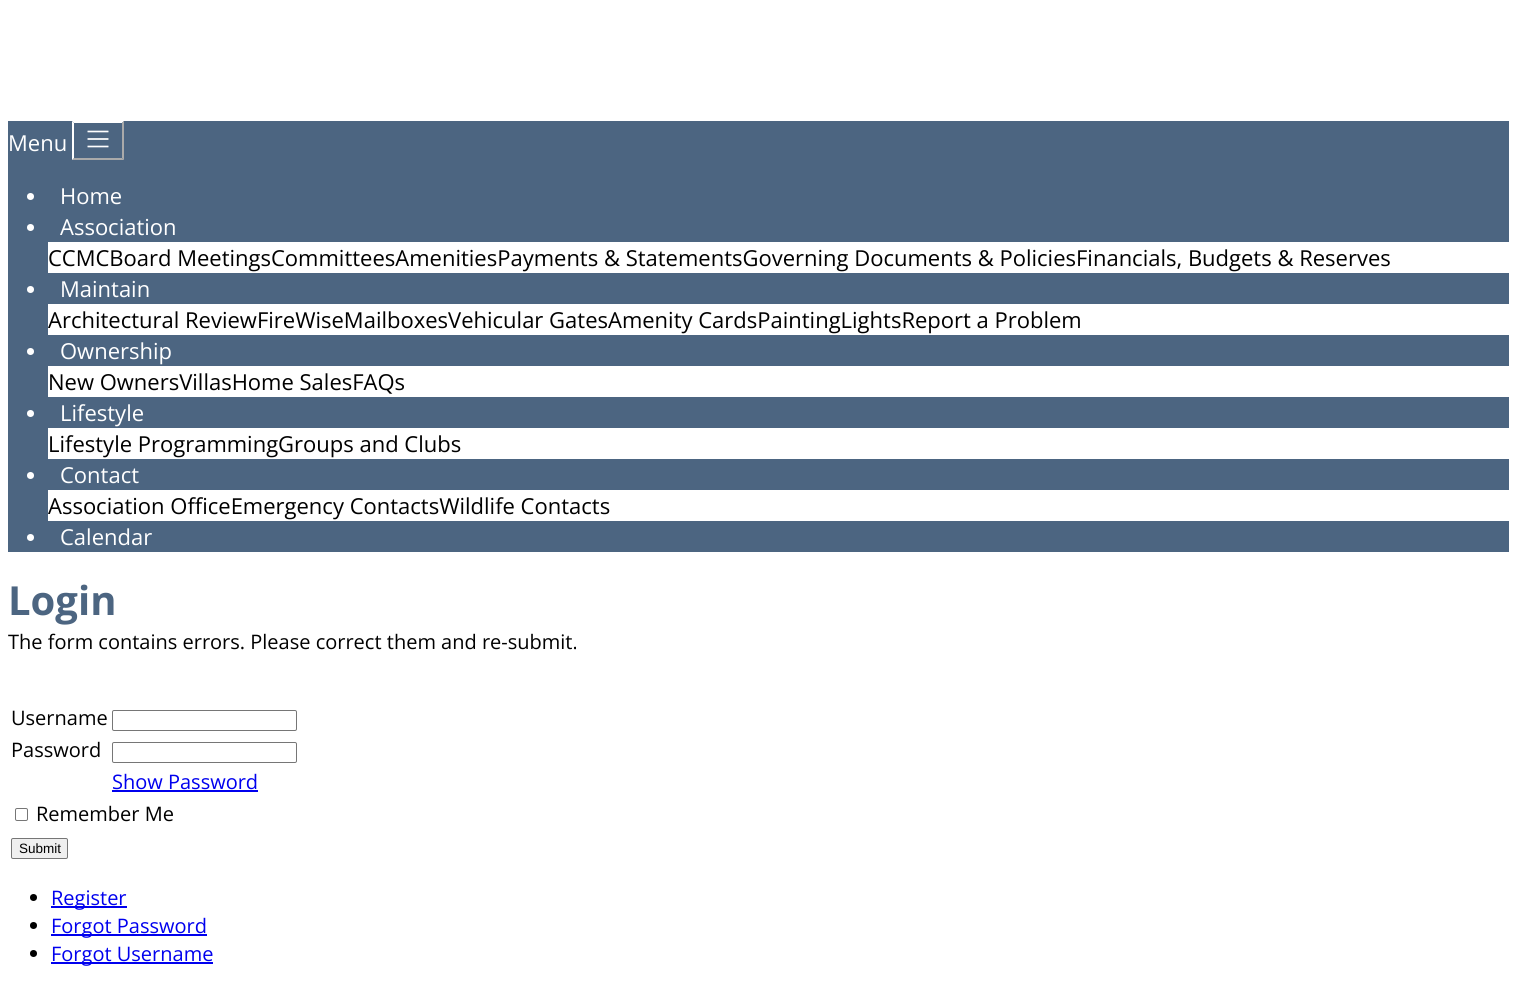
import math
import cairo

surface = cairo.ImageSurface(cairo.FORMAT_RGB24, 1517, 984)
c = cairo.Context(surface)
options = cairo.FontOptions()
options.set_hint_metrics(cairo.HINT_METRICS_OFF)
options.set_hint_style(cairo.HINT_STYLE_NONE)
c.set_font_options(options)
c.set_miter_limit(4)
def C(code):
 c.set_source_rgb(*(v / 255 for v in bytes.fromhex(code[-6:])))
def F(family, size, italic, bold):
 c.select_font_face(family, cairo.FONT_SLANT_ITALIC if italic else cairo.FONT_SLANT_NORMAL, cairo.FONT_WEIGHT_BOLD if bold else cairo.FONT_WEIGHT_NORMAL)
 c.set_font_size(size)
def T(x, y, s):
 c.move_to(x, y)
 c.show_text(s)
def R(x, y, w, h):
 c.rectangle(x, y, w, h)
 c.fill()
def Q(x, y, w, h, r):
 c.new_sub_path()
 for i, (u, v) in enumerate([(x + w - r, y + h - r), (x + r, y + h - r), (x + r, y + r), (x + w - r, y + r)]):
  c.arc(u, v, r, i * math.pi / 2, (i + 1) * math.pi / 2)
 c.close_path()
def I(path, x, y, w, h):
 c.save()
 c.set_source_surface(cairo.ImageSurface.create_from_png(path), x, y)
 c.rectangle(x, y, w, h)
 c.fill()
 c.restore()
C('ffffff')
c.paint()
C('4c6581')
R(8,121,1501,431)
F('Open Sans',22,0,0)
C('ffffff')
T(8,151,'Menu')
c.new_path()
c.move_to(72,121)
c.line_to(124,121)
c.line_to(122,123)
c.line_to(74,123)
c.close_path()
c.fill()
C('aaaaaa')
c.new_path()
c.move_to(124,121)
c.line_to(124,160)
c.line_to(122,158)
c.line_to(122,123)
c.close_path()
c.fill()
c.new_path()
c.move_to(124,160)
c.line_to(72,160)
c.line_to(74,158)
c.line_to(122,158)
c.close_path()
c.fill()
C('ffffff')
c.new_path()
c.move_to(72,160)
c.line_to(72,121)
c.line_to(74,123)
c.line_to(74,158)
c.close_path()
c.fill()
I('1.png',87,130,22,18)
c.arc(30.5,196.5,3.5,0,2 * math.pi)
c.fill()
T(60,204,'Home')
c.new_path()
c.arc(30.5,227.5,3.5,0,2 * math.pi)
c.fill()
T(60,235,'Association')
R(48,242,1461,31)
C('000000')
T(48,266,'CCMCBoard MeetingsCommitteesAmenitiesPayments & StatementsGoverning Documents & PoliciesFinancials, Budgets & Reserves')
C('ffffff')
c.new_path()
c.arc(30.5,289.5,3.5,0,2 * math.pi)
c.fill()
T(60,297,'Maintain')
R(48,304,1461,31)
C('000000')
T(48,328,'Architectural ReviewFireWiseMailboxesVehicular GatesAmenity CardsPaintingLightsReport a Problem')
C('ffffff')
c.new_path()
c.arc(30.5,351.5,3.5,0,2 * math.pi)
c.fill()
T(60,359,'Ownership')
R(48,366,1461,31)
C('000000')
T(48,390,'New OwnersVillasHome SalesFAQs')
C('ffffff')
c.new_path()
c.arc(30.5,413.5,3.5,0,2 * math.pi)
c.fill()
T(60,421,'Lifestyle')
R(48,428,1461,31)
C('000000')
T(48,452,'Lifestyle ProgrammingGroups and Clubs')
C('ffffff')
c.new_path()
c.arc(30.5,475.5,3.5,0,2 * math.pi)
c.fill()
T(60,483,'Contact')
R(48,490,1461,31)
C('000000')
T(48,514,'Association OfficeEmergency ContactsWildlife Contacts')
C('ffffff')
c.new_path()
c.arc(30.5,537.5,3.5,0,2 * math.pi)
c.fill()
T(60,545,'Calendar')
F('Open Sans',40,0,1)
C('4c6581')
T(8,615,'Login')
F('Open Sans',20,0,0)
C('000000')
T(8,649,'The form contains errors. Please correct them and re-submit.')
T(11,725,'Username')
Q(112.5,710.5,184,20,1.5)
C('767676')
c.set_line_width(1)
c.stroke()
C('000000')
T(11,757,'Password')
Q(112.5,742.5,184,20,1.5)
C('767676')
c.stroke()
C('0000ee')
T(112,789,'Show Password')
R(112,790,146,2)
Q(15.5,808.5,12,12,1.5)
C('767676')
c.stroke()
C('000000')
T(36,821,'Remember Me')
C('efefef')
Q(11.5,838.5,56,20,1.5)
c.fill_preserve()
C('767676')
c.stroke()
F('Liberation Sans',13.5,0,0)
C('000000')
T(19,853,'Submit')
c.new_path()
c.arc(33.5,897.5,3.5,0,2 * math.pi)
c.fill()
C('0000ee')
R(51,906,76,2)
F('Open Sans',20,0,0)
T(51,905,'Register')
C('000000')
c.new_path()
c.arc(33.5,925.5,3.5,0,2 * math.pi)
c.fill()
C('0000ee')
R(51,934,156,2)
T(51,933,'Forgot Password')
C('000000')
c.new_path()
c.arc(33.5,953.5,3.5,0,2 * math.pi)
c.fill()
C('0000ee')
R(51,962,162,2)
T(51,961,'Forgot Username')
surface.write_to_png('o.png')
